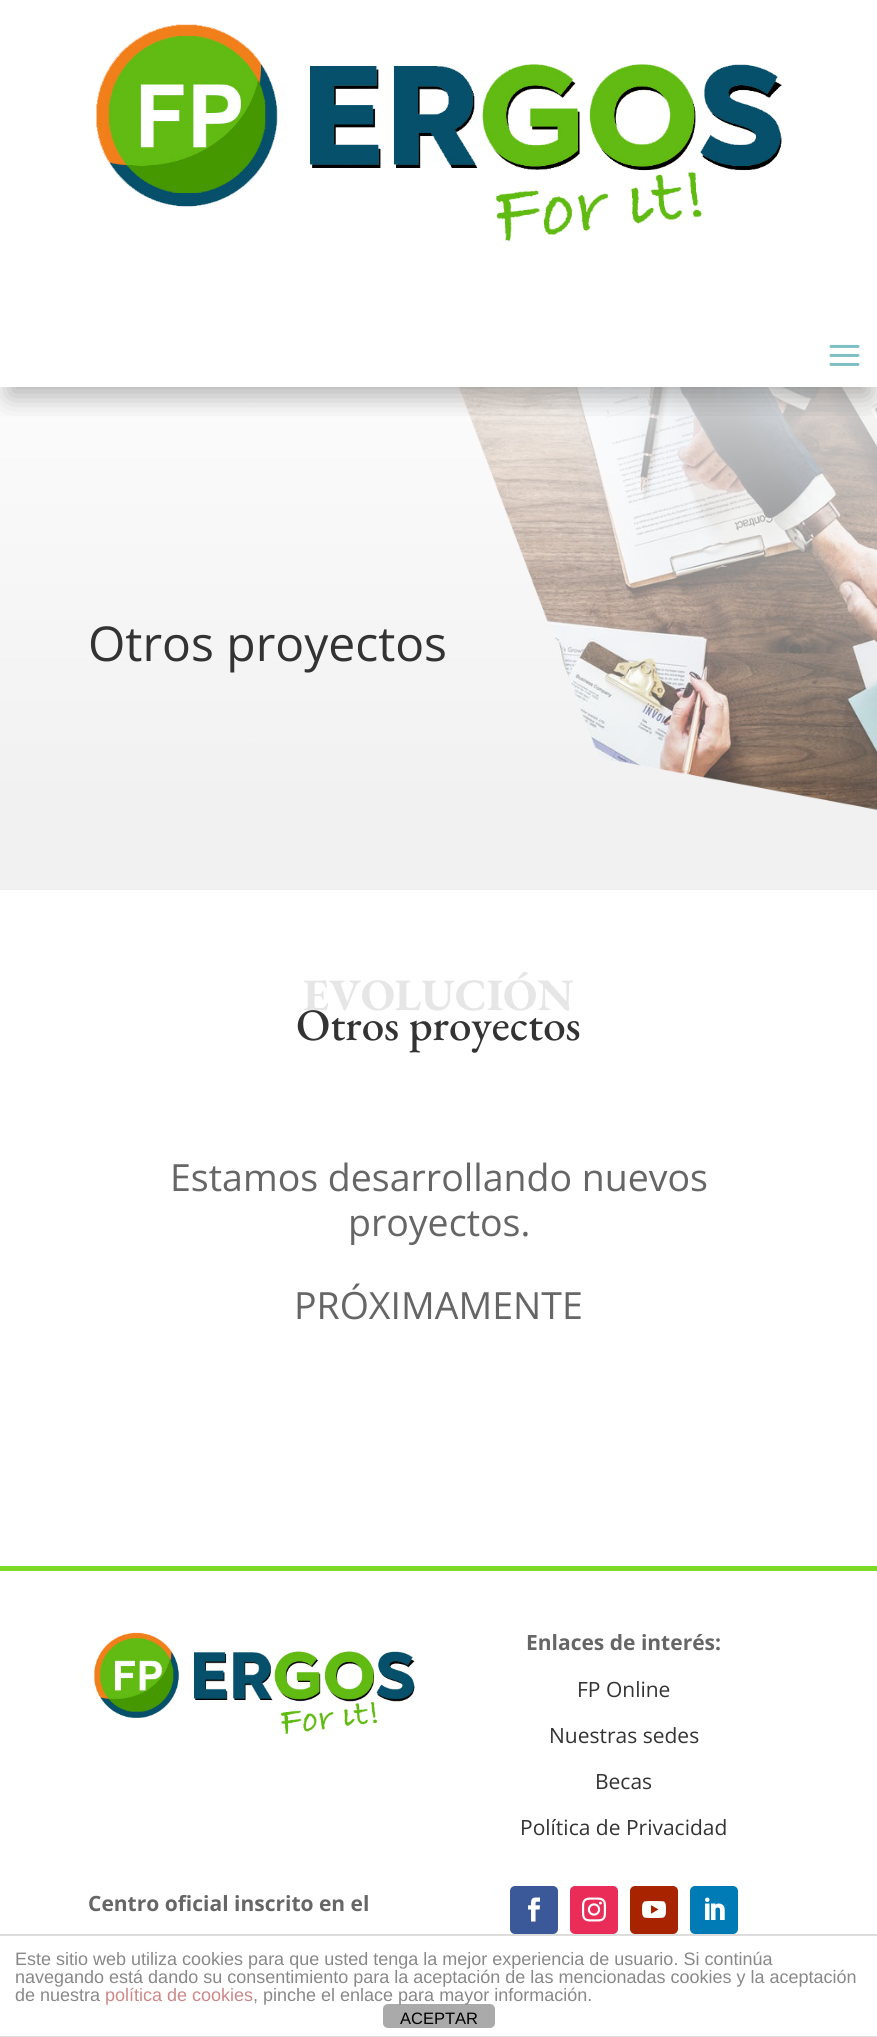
import math
import cairo

surface = cairo.ImageSurface(cairo.FORMAT_RGB24, 877, 2037)
c = cairo.Context(surface)
options = cairo.FontOptions()
options.set_hint_metrics(cairo.HINT_METRICS_OFF)
options.set_hint_style(cairo.HINT_STYLE_NONE)
c.set_font_options(options)
c.set_miter_limit(4)
def C(code):
 c.set_source_rgb(*(v / 255 for v in bytes.fromhex(code[-6:])))
def F(family, size, italic, bold):
 c.select_font_face(family, cairo.FONT_SLANT_ITALIC if italic else cairo.FONT_SLANT_NORMAL, cairo.FONT_WEIGHT_BOLD if bold else cairo.FONT_WEIGHT_NORMAL)
 c.set_font_size(size)
def T(x, y, s):
 c.move_to(x, y)
 c.show_text(s)
def R(x, y, w, h):
 c.rectangle(x, y, w, h)
 c.fill()
def Q(x, y, w, h, r):
 c.new_sub_path()
 for i, (u, v) in enumerate([(x + w - r, y + h - r), (x + r, y + h - r), (x + r, y + r), (x + w - r, y + r)]):
  c.arc(u, v, r, i * math.pi / 2, (i + 1) * math.pi / 2)
 c.close_path()
def S(x, y, w, h, r, blur, alpha):
 c.push_group_with_content(cairo.CONTENT_ALPHA)
 c.set_operator(cairo.OPERATOR_SOURCE)
 for i in range(15, -16, -2):
  e = blur * i / 6
  if min(w, h) + 2 * e > 0:
   c.set_source_rgba(0, 0, 0, alpha * math.erfc((i - 1) / 8.5) / 2)
   Q(x - e, y - e, w + 2 * e, h + 2 * e, max(0, min(r + e + blur * .6, min(w, h) / 2 + e)))
   c.fill()
 c.mask(c.pop_group())
def I(path, x, y, w, h):
 c.save()
 c.set_source_surface(cairo.ImageSurface.create_from_png(path), x, y)
 c.rectangle(x, y, w, h)
 c.fill()
 c.restore()
C('ffffff')
c.paint()
C('ededed')
R(0,387,877,503)
I('3.png',0,387,877,502)
c.save()
c.rectangle(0,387,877,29)
c.clip()
C('000000')
S(9,27,860,369,0,13.5,.3)
c.restore()
I('1.png',96,24,686,217)
I('2.png',829,344,31,22)
F('Open Sans',48,0,0)
C('333333')
T(88,661,'Otros proyectos')
F('EB Garamond',45,0,1)
C('e6e6e6')
T(303,1010,'EVOLUCIÓN')
F('EB Garamond Medium',45,0,0)
C('333333')
T(296,1040,'Otros proyectos')
F('Open Sans',37.5,0,0)
C('666666')
T(170,1191,'Estamos desarrollando nuevos')
T(348,1236,'proyectos.')
T(294,1319,'PRÓXIMAMENTE')
C('7cda24')
R(0,1566,877,5)
I('4.png',94,1632,321,102)
F('Open Sans',21,0,1)
C('666666')
T(526,1650,'Enlaces de interés:')
F('Open Sans',21,0,0)
C('333333')
T(577,1697,'FP Online')
T(549,1743,'Nuestras sedes')
T(595,1789,'Becas')
T(520,1835,'Política de Privacidad')
F('Open Sans',21,0,1)
C('666666')
T(88,1911,'Centro oficial inscrito en el')
C('3b5998')
Q(510,1886,48,48,5)
c.fill()
I('5.png',528,1897,13,25)
C('ea2c59')
Q(570,1886,48,48,5)
c.fill()
I('6.png',582,1897,24,25)
C('a82400')
Q(630,1886,48,48,5)
c.fill()
I('7.png',642,1901,24,17)
C('007bb6')
Q(690,1886,48,48,5)
c.fill()
I('8.png',705,1897,20,23)
C('dddddd')
R(0,1934,877,2)
R(0,2036,877,1)
F('Liberation Sans',18,0,0)
C('888888')
T(15,1965,'Este sitio web utiliza cookies para que usted tenga la mejor experiencia de usuario. Si continúa')
T(15,1983,'navegando está dando su consentimiento para la aceptación de las mencionadas cookies y la aceptación')
T(15,2001,'de nuestra')
C('cc8888')
T(105,2001,'política de cookies')
C('aaaaaa')
Q(383,2004,112,24,5)
c.fill()
C('888888')
T(253,2001,', pinche el enlace para mayor información.')
F('Liberation Sans',16.5,0,0)
C('000000')
T(400,2024,'ACEPTAR')
surface.write_to_png('o.png')
